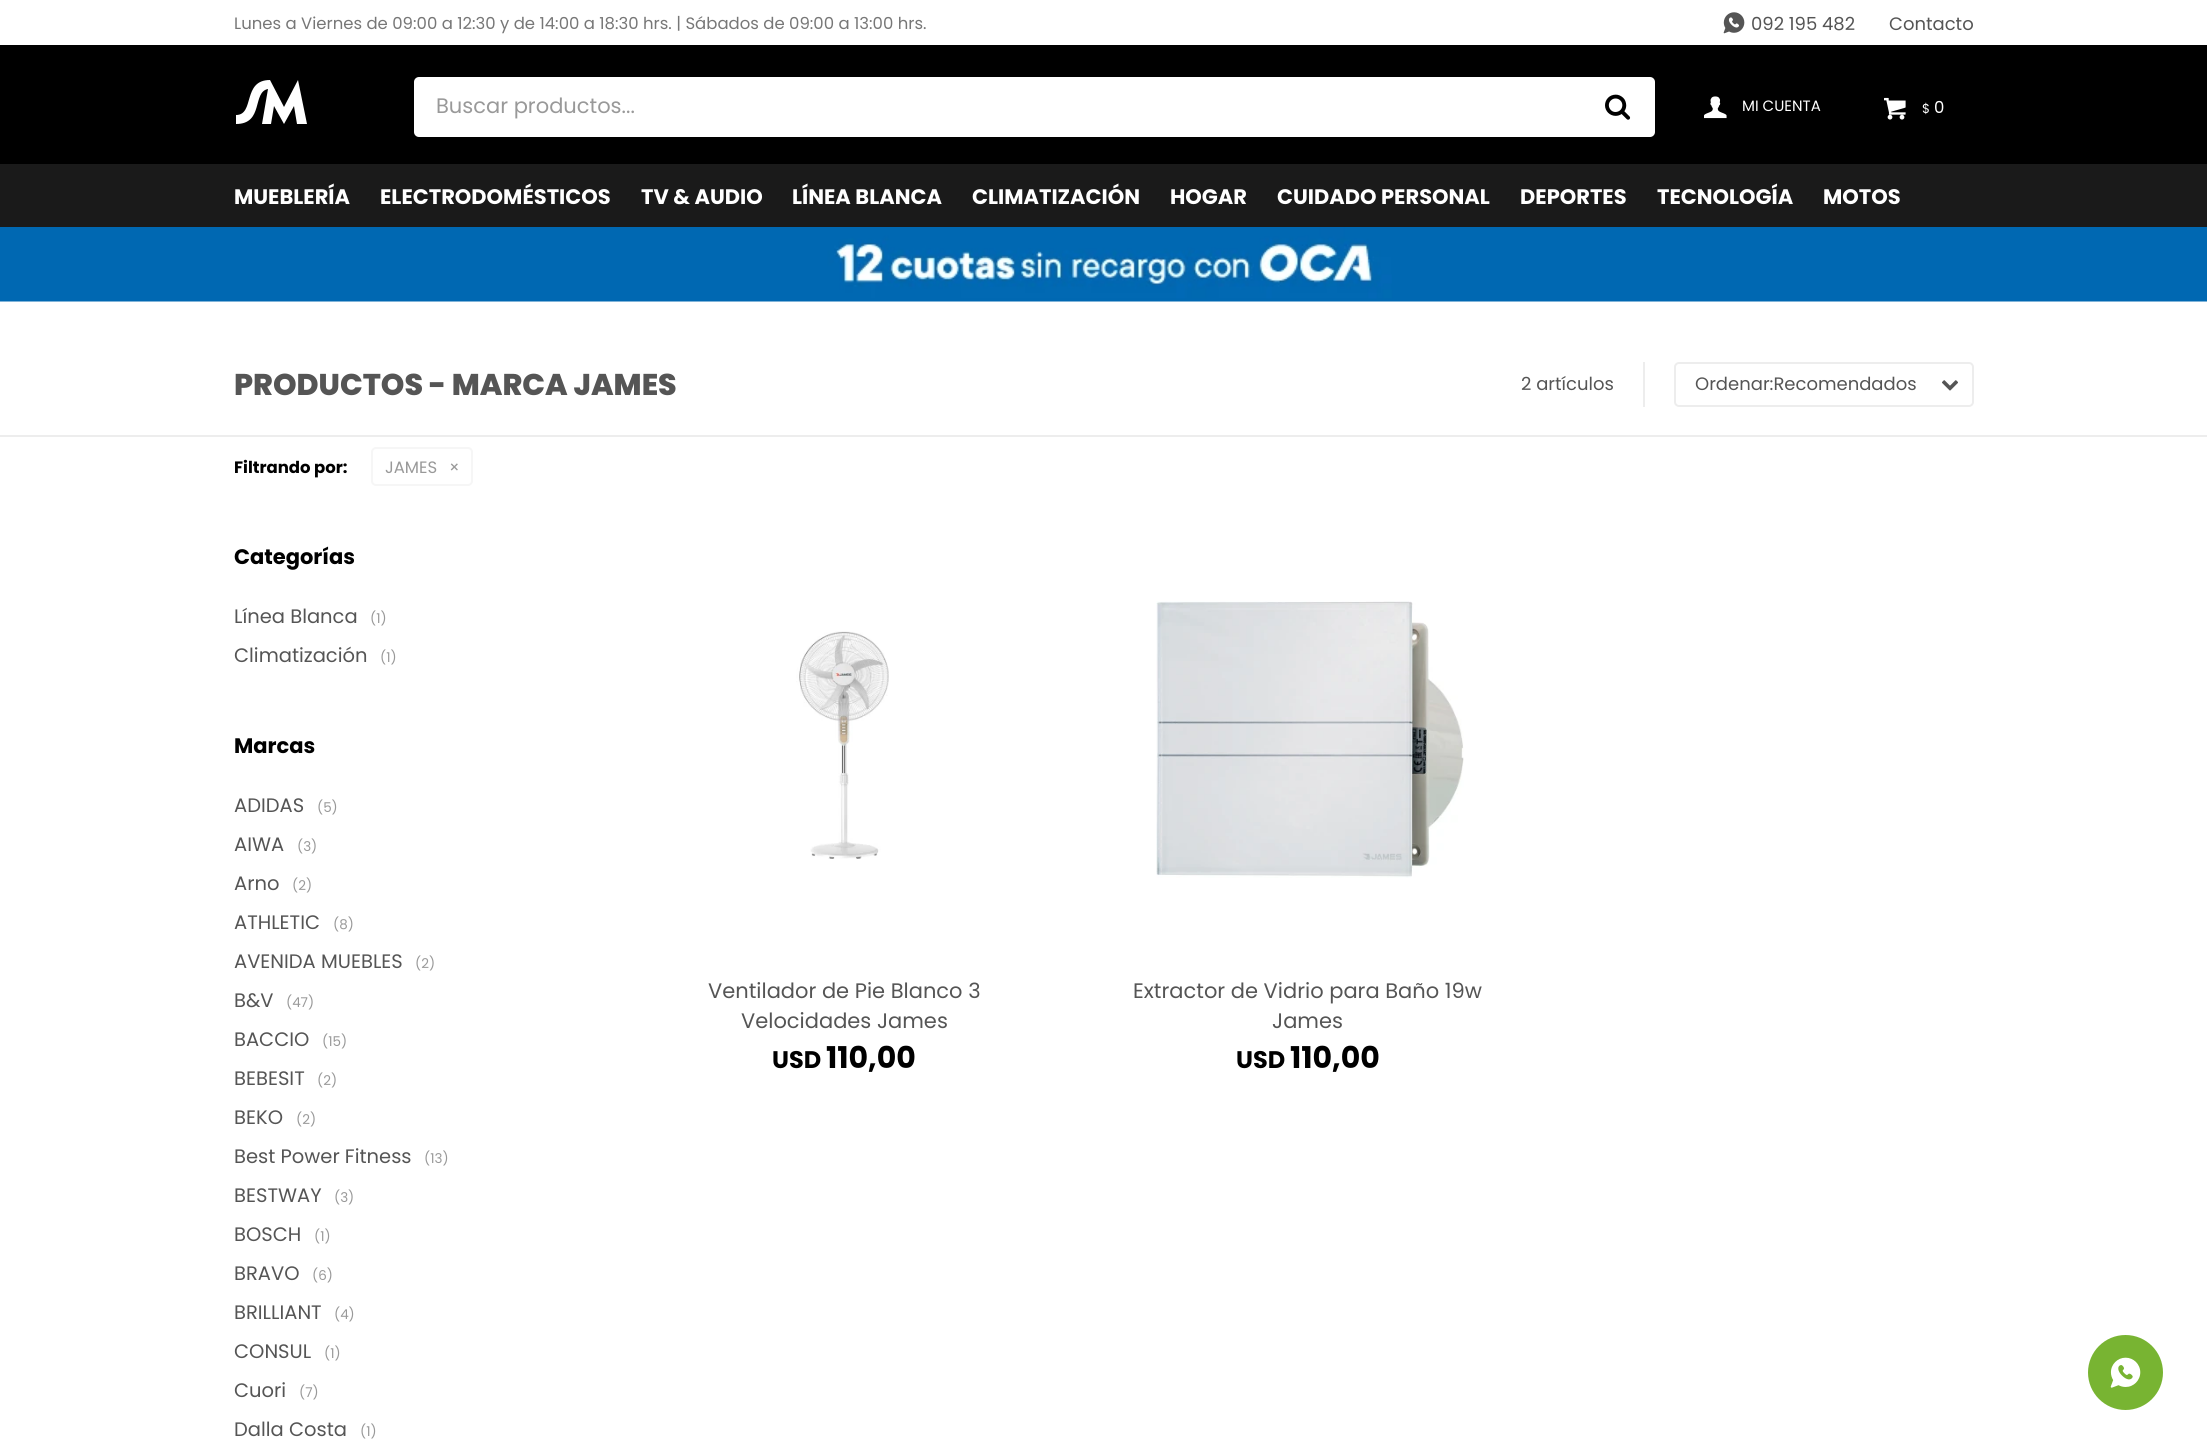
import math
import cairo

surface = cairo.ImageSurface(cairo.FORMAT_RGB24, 2207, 1454)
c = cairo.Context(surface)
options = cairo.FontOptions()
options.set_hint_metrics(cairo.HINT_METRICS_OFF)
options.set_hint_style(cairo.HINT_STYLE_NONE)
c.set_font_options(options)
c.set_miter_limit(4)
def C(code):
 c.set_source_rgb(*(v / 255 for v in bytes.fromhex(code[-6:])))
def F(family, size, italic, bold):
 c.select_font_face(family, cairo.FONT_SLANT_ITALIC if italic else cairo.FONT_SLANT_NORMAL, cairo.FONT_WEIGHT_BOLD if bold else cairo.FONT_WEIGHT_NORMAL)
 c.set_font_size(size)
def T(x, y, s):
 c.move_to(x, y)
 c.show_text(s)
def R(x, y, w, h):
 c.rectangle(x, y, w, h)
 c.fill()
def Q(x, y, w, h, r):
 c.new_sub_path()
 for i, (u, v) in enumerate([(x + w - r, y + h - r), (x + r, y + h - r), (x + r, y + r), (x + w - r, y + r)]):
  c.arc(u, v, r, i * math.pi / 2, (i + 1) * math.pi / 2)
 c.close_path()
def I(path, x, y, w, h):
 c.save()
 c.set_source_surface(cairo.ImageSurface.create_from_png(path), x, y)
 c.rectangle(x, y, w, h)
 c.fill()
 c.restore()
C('ffffff')
c.paint()
F('Poppins',16.5,0,0)
C('777777')
T(234,29,'Lunes a Viernes de 09:00 a 12:30 y de 14:00 a 18:30 hrs. | Sábados de 09:00 a 13:00 hrs.')
I('1.png',1723,12,22,22)
F('Poppins',18,0,0)
C('555555')
T(1751,30,'092 195 482')
T(1889,30,'Contacto')
C('000000')
R(0,45,2207,119)
C('ffffff')
c.new_path()
c.move_to(298,80)
c.line_to(284,107)
c.line_to(270,80)
c.curve_to(242,80,255,115,236,115)
c.line_to(236,124)
c.curve_to(264,124,252,92,268,89)
c.line_to(262,124)
c.line_to(271,124)
c.line_to(274,106)
c.line_to(284,124)
c.line_to(294,106)
c.line_to(297,124)
c.line_to(307,124)
c.close_path()
c.fill()
Q(414,77,1241,60,5)
c.fill()
F('Poppins',21,0,0)
C('999999')
T(436,113,'Buscar productos...')
I('2.png',1605,94,26,26)
I('3.png',1704,96,23,23)
F('Poppins',15,0,0)
C('ffffff')
T(1742,111,'MI CUENTA')
I('4.png',1884,97,22,23)
F('Poppins',13,0,0)
T(1922,113,'$')
F('Poppins',16.5,0,0)
T(1934,113,'0')
C('1a1a1a')
R(0,164,2207,63)
F('Poppins',21,0,1)
C('ffffff')
T(234,204,'MUEBLERÍA')
T(380,204,'ELECTRODOMÉSTICOS')
T(641,204,'TV & AUDIO')
T(792,204,'LÍNEA BLANCA')
T(972,204,'CLIMATIZACIÓN')
T(1170,204,'HOGAR')
T(1277,204,'CUIDADO PERSONAL')
T(1520,204,'DEPORTES')
T(1657,204,'TECNOLOGÍA')
T(1823,204,'MOTOS')
I('5.png',0,227,2207,75)
F('Poppins ExtraBold',30,0,0)
C('555555')
T(234,395,'PRODUCTOS - MARCA JAMES')
F('Poppins',18,0,0)
T(1521,390,'2 artículos')
C('ededed')
R(1643,362,2,45)
I('6.png',1942,380,16,11)
Q(1675,363,298,43,4)
c.stroke()
C('555555')
T(1695,390,'Ordenar:Recomendados')
C('ededed')
R(0,435,2207,2)
F('Poppins',16.5,0,1)
C('000000')
T(234,473,'Filtrando por:')
Q(372,448,100,37,4)
C('f6f6f6')
c.stroke()
F('Poppins',16.5,0,0)
C('999999')
T(385,473,'JAMES')
T(449,473,'×')
F('Poppins',21,0,1)
C('000000')
T(234,564,'Categorías')
F('Poppins',19.5,0,0)
C('555555')
T(234,623,'Línea Blanca')
F('Poppins',13.5,0,0)
C('999999')
T(370,623,'(1)')
F('Poppins',19.5,0,0)
C('555555')
T(234,662,'Climatización')
F('Poppins',13.5,0,0)
C('999999')
T(380,662,'(1)')
F('Poppins',21,0,1)
C('000000')
T(234,753,'Marcas')
F('Poppins',19.5,0,0)
C('555555')
T(234,812,'ADIDAS')
F('Poppins',13.5,0,0)
C('999999')
T(317,812,'(5)')
F('Poppins',19.5,0,0)
C('555555')
T(234,851,'AIWA')
F('Poppins',13.5,0,0)
C('999999')
T(297,851,'(3)')
F('Poppins',19.5,0,0)
C('555555')
T(234,890,'Arno')
F('Poppins',13.5,0,0)
C('999999')
T(292,890,'(2)')
F('Poppins',19.5,0,0)
C('555555')
T(234,929,'ATHLETIC')
F('Poppins',13.5,0,0)
C('999999')
T(333,929,'(8)')
F('Poppins',19.5,0,0)
C('555555')
T(234,968,'AVENIDA MUEBLES')
F('Poppins',13.5,0,0)
C('999999')
T(415,968,'(2)')
F('Poppins',19.5,0,0)
C('555555')
T(234,1007,'B&V')
F('Poppins',13.5,0,0)
C('999999')
T(286,1007,'(47)')
F('Poppins',19.5,0,0)
C('555555')
T(234,1046,'BACCIO')
F('Poppins',13.5,0,0)
C('999999')
T(322,1046,'(15)')
F('Poppins',19.5,0,0)
C('555555')
T(234,1085,'BEBESIT')
F('Poppins',13.5,0,0)
C('999999')
T(317,1085,'(2)')
F('Poppins',19.5,0,0)
C('555555')
T(234,1124,'BEKO')
F('Poppins',13.5,0,0)
C('999999')
T(296,1124,'(2)')
F('Poppins',19.5,0,0)
C('555555')
T(234,1163,'Best Power Fitness')
F('Poppins',13.5,0,0)
C('999999')
T(424,1163,'(13)')
F('Poppins',19.5,0,0)
C('555555')
T(234,1202,'BESTWAY')
F('Poppins',13.5,0,0)
C('999999')
T(334,1202,'(3)')
F('Poppins',19.5,0,0)
C('555555')
T(234,1241,'BOSCH')
F('Poppins',13.5,0,0)
C('999999')
T(314,1241,'(1)')
F('Poppins',19.5,0,0)
C('555555')
T(234,1280,'BRAVO')
F('Poppins',13.5,0,0)
C('999999')
T(312,1280,'(6)')
F('Poppins',19.5,0,0)
C('555555')
T(234,1319,'BRILLIANT')
F('Poppins',13.5,0,0)
C('999999')
T(334,1319,'(4)')
F('Poppins',19.5,0,0)
C('555555')
T(234,1358,'CONSUL')
F('Poppins',13.5,0,0)
C('999999')
T(324,1358,'(1)')
F('Poppins',19.5,0,0)
C('555555')
T(234,1397,'Cuori')
F('Poppins',13.5,0,0)
C('999999')
T(299,1397,'(7)')
F('Poppins',19.5,0,0)
C('555555')
T(234,1436,'Dalla Costa')
F('Poppins',13.5,0,0)
C('999999')
T(360,1436,'(1)')
I('7.png',796,631,93,228)
F('Poppins',21,0,0)
C('555555')
T(708,998,'Ventilador de Pie Blanco 3')
T(741,1028,'Velocidades James')
F('Poppins',24,0,1)
C('000000')
T(772,1068,'USD')
F('Poppins',30,0,1)
T(826,1068,'110,00')
I('8.png',1156,601,308,277)
F('Poppins',21,0,0)
C('555555')
T(1133,998,'Extractor de Vidrio para Baño 19w')
T(1272,1028,'James')
F('Poppins',24,0,1)
C('000000')
T(1236,1068,'USD')
F('Poppins',30,0,1)
T(1290,1068,'110,00')
C('78b432')
c.new_path()
c.arc(2125.5,1372.5,37.5,0,2 * math.pi)
c.fill()
I('9.png',2110,1357,31,31)
surface.write_to_png('o.png')
